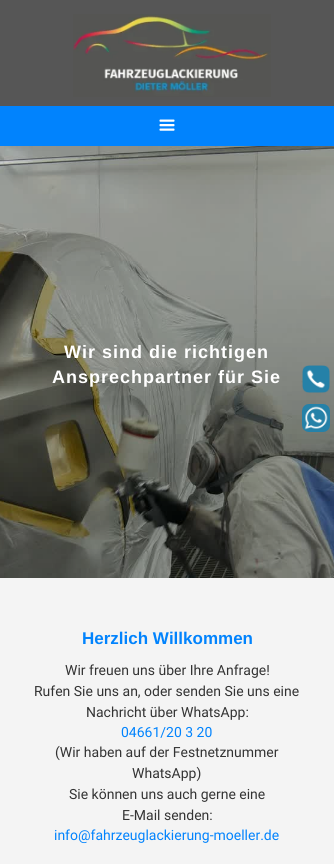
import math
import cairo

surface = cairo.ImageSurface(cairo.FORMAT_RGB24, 334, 864)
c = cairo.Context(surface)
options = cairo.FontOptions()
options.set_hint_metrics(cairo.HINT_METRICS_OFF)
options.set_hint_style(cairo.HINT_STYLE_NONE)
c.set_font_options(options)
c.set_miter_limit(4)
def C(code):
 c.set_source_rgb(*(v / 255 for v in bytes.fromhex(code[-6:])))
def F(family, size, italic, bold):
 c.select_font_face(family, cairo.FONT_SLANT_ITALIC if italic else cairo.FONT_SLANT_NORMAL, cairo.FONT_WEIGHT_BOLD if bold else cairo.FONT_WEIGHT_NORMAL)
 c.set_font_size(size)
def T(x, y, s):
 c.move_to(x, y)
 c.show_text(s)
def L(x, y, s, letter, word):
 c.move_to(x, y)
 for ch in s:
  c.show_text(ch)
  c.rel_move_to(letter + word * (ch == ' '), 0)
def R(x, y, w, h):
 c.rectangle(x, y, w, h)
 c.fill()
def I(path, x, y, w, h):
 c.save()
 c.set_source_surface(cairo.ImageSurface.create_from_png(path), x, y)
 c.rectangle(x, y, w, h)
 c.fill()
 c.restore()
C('ffffff')
c.paint()
C('565656')
R(0,0,334,106)
I('1.png',73,14,198,83)
C('0183fd')
R(0,106,334,40)
I('2.png',159,119,16,12)
I('3.png',0,146,334,432)
F('Liberation Sans',18,0,1)
C('ffffff')
L(64,358,'Wir sind die richtigen',1,0)
L(52,383,'Ansprechpartner für Sie',1,0)
I('4.png',302,365,28,28)
I('5.png',302,404,28,28)
C('f4f4f4')
R(0,578,334,286)
F('Liberation Sans',17,0,1)
C('0183fd')
T(82,644,'Herzlich Willkommen')
F('Roboto',14,0,0)
C('333333')
T(65,675,'Wir freuen uns über Ihre Anfrage!')
T(34,696,'Rufen Sie uns an, oder senden Sie uns eine')
T(86,717,'Nachricht über WhatsApp:')
C('0183fd')
T(121,737,'04661/20 3 20')
C('333333')
T(55,757,'(Wir haben auf der Festnetznummer')
T(132,778,'WhatsApp)')
T(69,799,'Sie können uns auch gerne eine')
T(122,820,'E-Mail senden:')
C('0183fd')
T(54,840,'info@fahrzeuglackierung-moeller.de')
surface.write_to_png('o.png')
